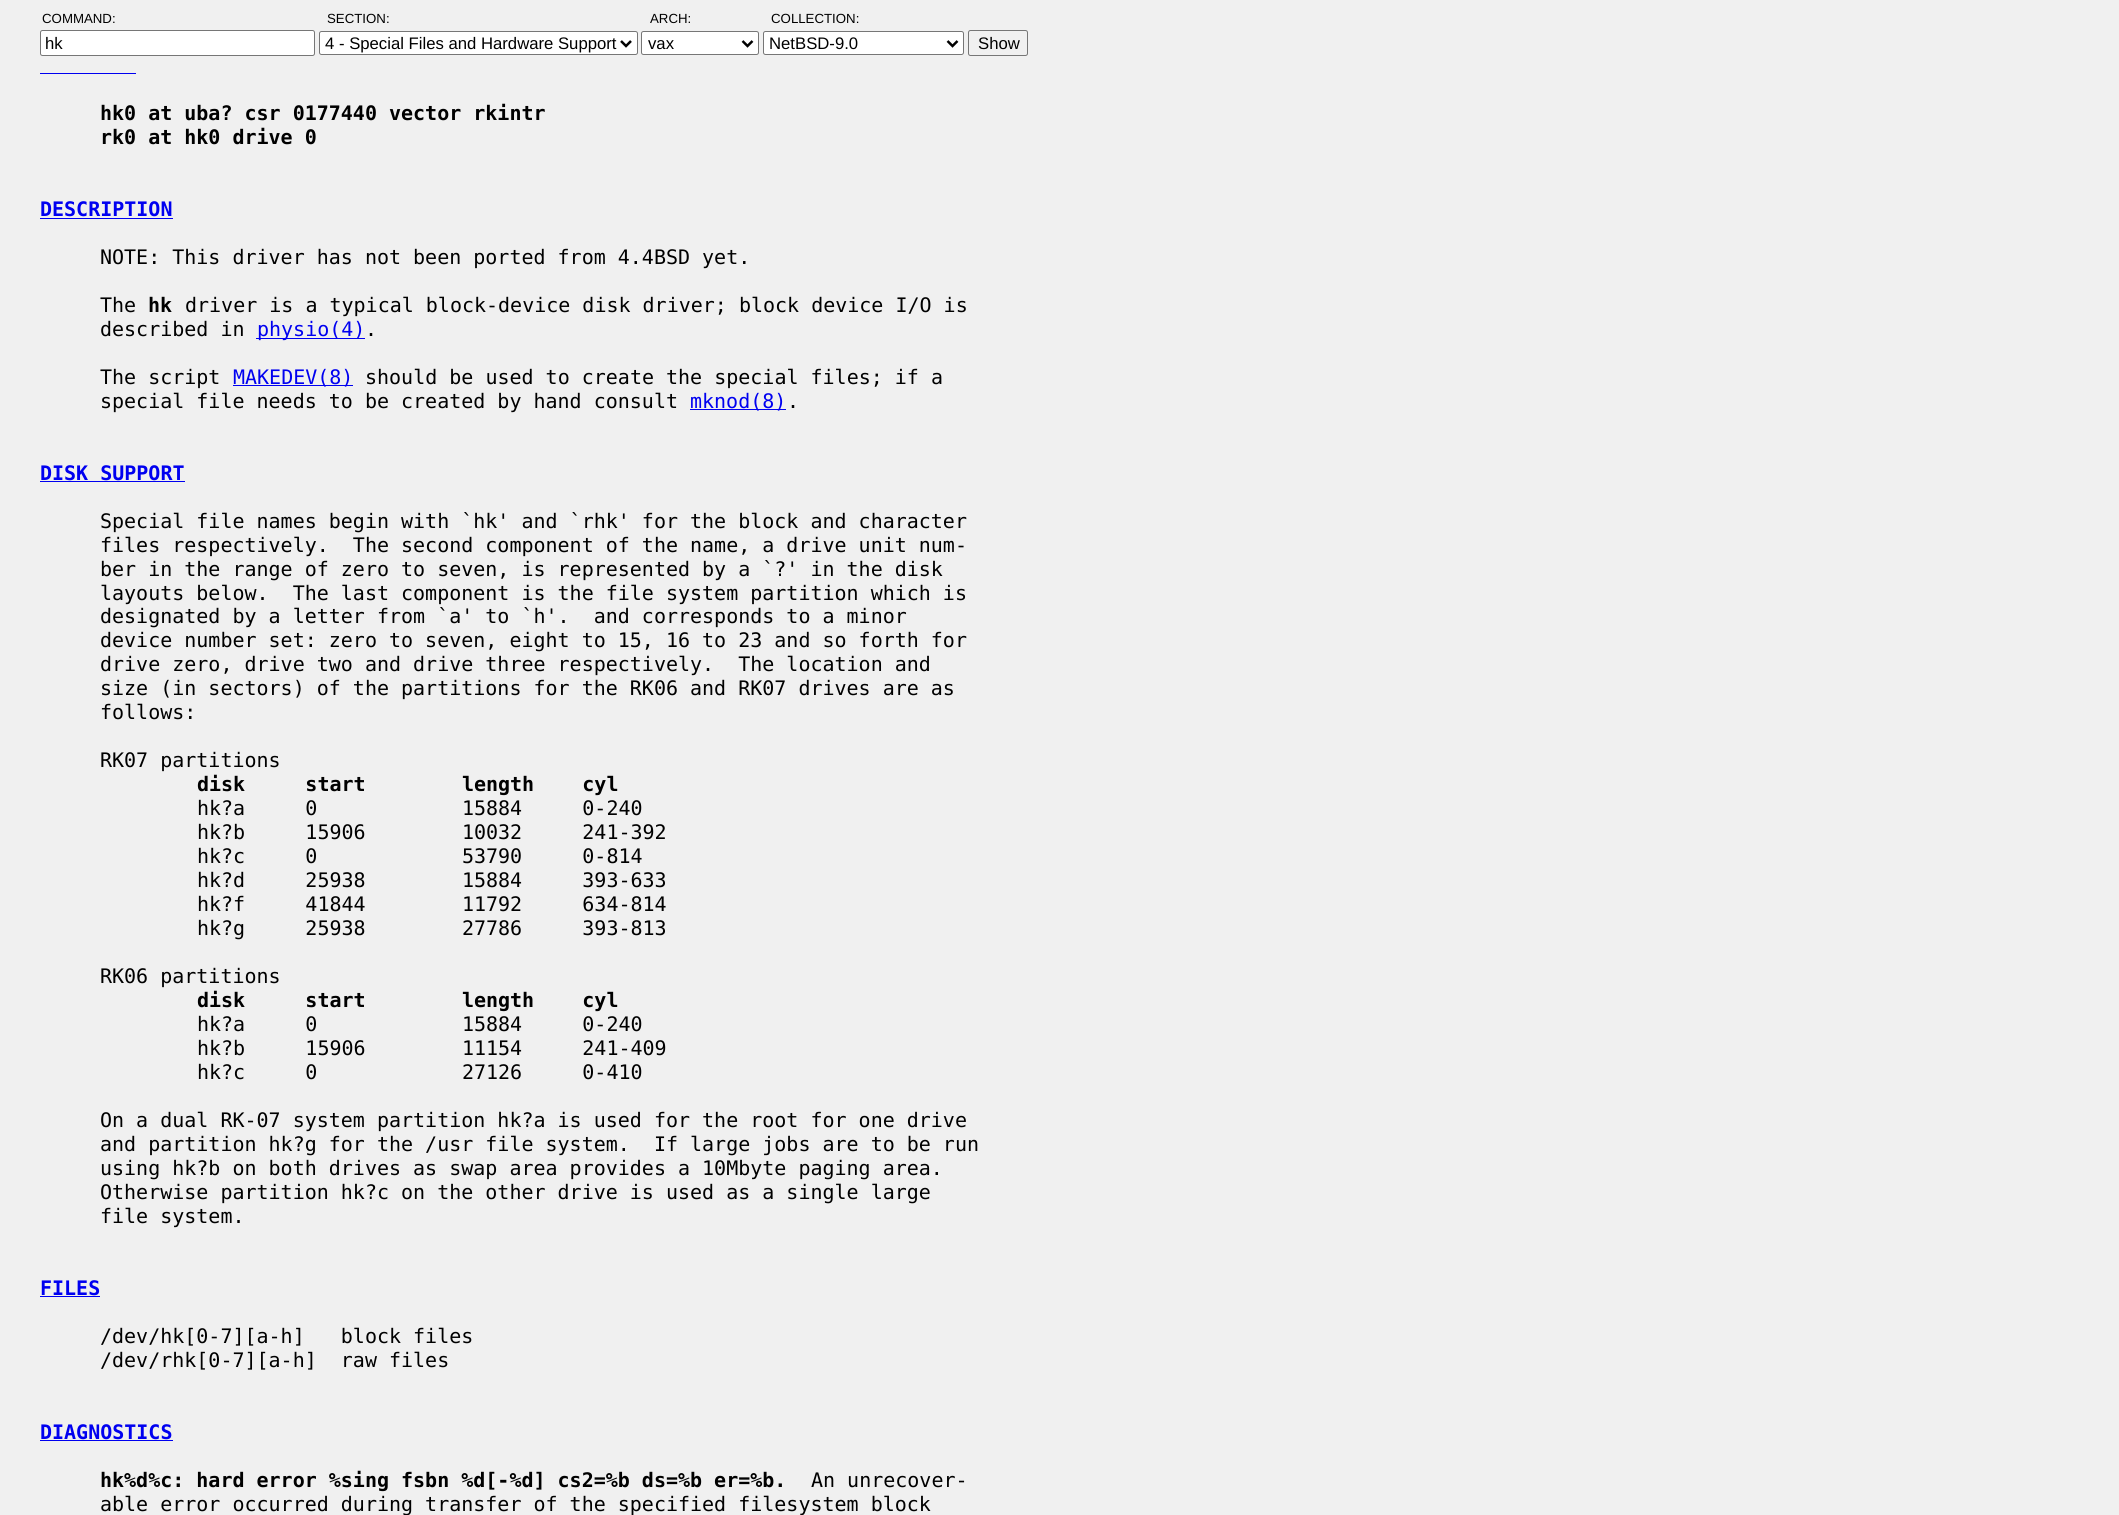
import math
import cairo

surface = cairo.ImageSurface(cairo.FORMAT_RGB24, 2119, 1515)
c = cairo.Context(surface)
options = cairo.FontOptions()
options.set_hint_metrics(cairo.HINT_METRICS_OFF)
options.set_hint_style(cairo.HINT_STYLE_NONE)
c.set_font_options(options)
c.set_miter_limit(4)
def C(code):
 c.set_source_rgb(*(v / 255 for v in bytes.fromhex(code[-6:])))
def F(family, size, italic, bold):
 c.select_font_face(family, cairo.FONT_SLANT_ITALIC if italic else cairo.FONT_SLANT_NORMAL, cairo.FONT_WEIGHT_BOLD if bold else cairo.FONT_WEIGHT_NORMAL)
 c.set_font_size(size)
def T(x, y, s):
 c.move_to(x, y)
 c.show_text(s)
def R(x, y, w, h):
 c.rectangle(x, y, w, h)
 c.fill()
def Q(x, y, w, h, r):
 c.new_sub_path()
 for i, (u, v) in enumerate([(x + w - r, y + h - r), (x + r, y + h - r), (x + r, y + r), (x + w - r, y + r)]):
  c.arc(u, v, r, i * math.pi / 2, (i + 1) * math.pi / 2)
 c.close_path()
C('f0f0f0')
c.paint()
F('Liberation Sans',13.25,0,0)
C('000000')
T(42,23,'COMMAND:')
C('ffffff')
Q(40.5,30.5,274,25,2)
c.fill_preserve()
C('767676')
c.set_line_width(1)
c.stroke()
F('Liberation Sans',16.7,0,0)
C('000000')
T(45,49,'hk')
F('Liberation Sans',13.25,0,0)
T(327,23,'SECTION:')
C('ffffff')
Q(319.5,31.5,318,23,2)
c.fill_preserve()
C('767676')
c.stroke()
c.new_path()
c.move_to(621,41)
c.line_to(626,46)
c.line_to(631,41)
C('000000')
c.set_line_width(2.5)
c.stroke()
F('Liberation Sans',16.7,0,0)
T(325,49,'4 - Special Files and Hardware Support')
F('Liberation Sans',13.25,0,0)
T(650,23,'ARCH:')
C('ffffff')
Q(641.5,31.5,117,23,2)
c.fill_preserve()
C('767676')
c.set_line_width(1)
c.stroke()
c.new_path()
c.move_to(742.5,41)
c.line_to(747.5,46)
c.line_to(752.5,41)
C('000000')
c.set_line_width(2.5)
c.stroke()
F('Liberation Sans',16.7,0,0)
T(648,49,'vax')
F('Liberation Sans',13.25,0,0)
T(771,23,'COLLECTION:')
C('ffffff')
Q(763.5,31.5,200,23,2)
c.fill_preserve()
C('767676')
c.set_line_width(1)
c.stroke()
c.new_path()
c.move_to(947.5,41)
c.line_to(952.5,46)
c.line_to(957.5,41)
C('000000')
c.set_line_width(2.5)
c.stroke()
F('Liberation Sans',16.7,0,0)
T(769,49,'NetBSD-9.0')
Q(968.5,30.5,59,25,2)
C('767676')
c.set_line_width(1)
c.stroke()
C('000000')
T(978,49,'Show')
C('0000f0')
R(40,73,96,1)
F('DejaVu Sans Mono',20,0,1)
C('000000')
T(100,120,'hk0 at uba? csr 0177440 vector rkintr')
T(100,144,'rk0 at hk0 drive 0')
C('0000f0')
T(40,216,'DESCRIPTION')
R(40,218,133,1)
F('DejaVu Sans Mono',20,0,0)
C('000000')
T(100,264,'NOTE: This driver has not been ported from 4.4BSD yet.')
T(100,312,'The')
F('DejaVu Sans Mono',20,0,1)
T(148,312,'hk')
F('DejaVu Sans Mono',20,0,0)
T(185,312,'driver is a typical block-device disk driver; block device I/O is')
T(100,336,'described in')
C('0000f0')
R(256,338,109,1)
T(257,336,'physio(4)')
C('000000')
T(365,336,'.')
T(100,384,'The script')
C('0000f0')
R(233,385,120,1)
T(233,384,'MAKEDEV(8)')
C('000000')
T(365,384,'should be used to create the special files; if a')
T(100,408,'special file needs to be created by hand consult')
C('0000f0')
R(690,409,96,1)
T(690,408,'mknod(8)')
C('000000')
T(787,408,'.')
F('DejaVu Sans Mono',20,0,1)
C('0000f0')
T(40,480,'DISK SUPPORT')
R(40,481,145,1)
F('DejaVu Sans Mono',20,0,0)
C('000000')
T(100,528,'Special file names begin with `hk\' and `rhk\' for the block and character')
T(100,552,'files respectively.  The second component of the name, a drive unit num-')
T(100,576,'ber in the range of zero to seven, is represented by a `?\' in the disk')
T(100,600,'layouts below.  The last component is the file system partition which is')
T(100,623,'designated by a letter from `a\' to `h\'.  and corresponds to a minor')
T(100,647,'device number set: zero to seven, eight to 15, 16 to 23 and so forth for')
T(100,671,'drive zero, drive two and drive three respectively.  The location and')
T(100,695,'size (in sectors) of the partitions for the RK06 and RK07 drives are as')
T(100,719,'follows:')
T(100,767,'RK07 partitions')
F('DejaVu Sans Mono',20,0,1)
T(197,791,'disk     start        length    cyl')
F('DejaVu Sans Mono',20,0,0)
T(197,815,'hk?a     0            15884     0-240')
T(197,839,'hk?b     15906        10032     241-392')
T(197,863,'hk?c     0            53790     0-814')
T(197,887,'hk?d     25938        15884     393-633')
T(197,911,'hk?f     41844        11792     634-814')
T(197,935,'hk?g     25938        27786     393-813')
T(100,983,'RK06 partitions')
F('DejaVu Sans Mono',20,0,1)
T(197,1007,'disk     start        length    cyl')
F('DejaVu Sans Mono',20,0,0)
T(197,1031,'hk?a     0            15884     0-240')
T(197,1055,'hk?b     15906        11154     241-409')
T(197,1079,'hk?c     0            27126     0-410')
T(100,1127,'On a dual RK-07 system partition hk?a is used for the root for one drive')
T(100,1151,'and partition hk?g for the /usr file system.  If large jobs are to be run')
T(100,1175,'using hk?b on both drives as swap area provides a 10Mbyte paging area.')
T(100,1199,'Otherwise partition hk?c on the other drive is used as a single large')
T(100,1223,'file system.')
F('DejaVu Sans Mono',20,0,1)
C('0000f0')
T(40,1295,'FILES')
R(40,1296,60,1)
F('DejaVu Sans Mono',20,0,0)
C('000000')
T(100,1343,'/dev/hk[0-7][a-h]   block files')
T(100,1367,'/dev/rhk[0-7][a-h]  raw files')
F('DejaVu Sans Mono',20,0,1)
C('0000f0')
T(40,1439,'DIAGNOSTICS')
R(40,1440,133,1)
C('000000')
T(100,1487,'hk%d%c: hard error %sing fsbn %d[-%d] cs2=%b ds=%b er=%b.')
F('DejaVu Sans Mono',20,0,0)
T(811,1487,'An unrecover-')
T(100,1511,'able error occurred during transfer of the specified filesystem block')
surface.write_to_png('o.png')
